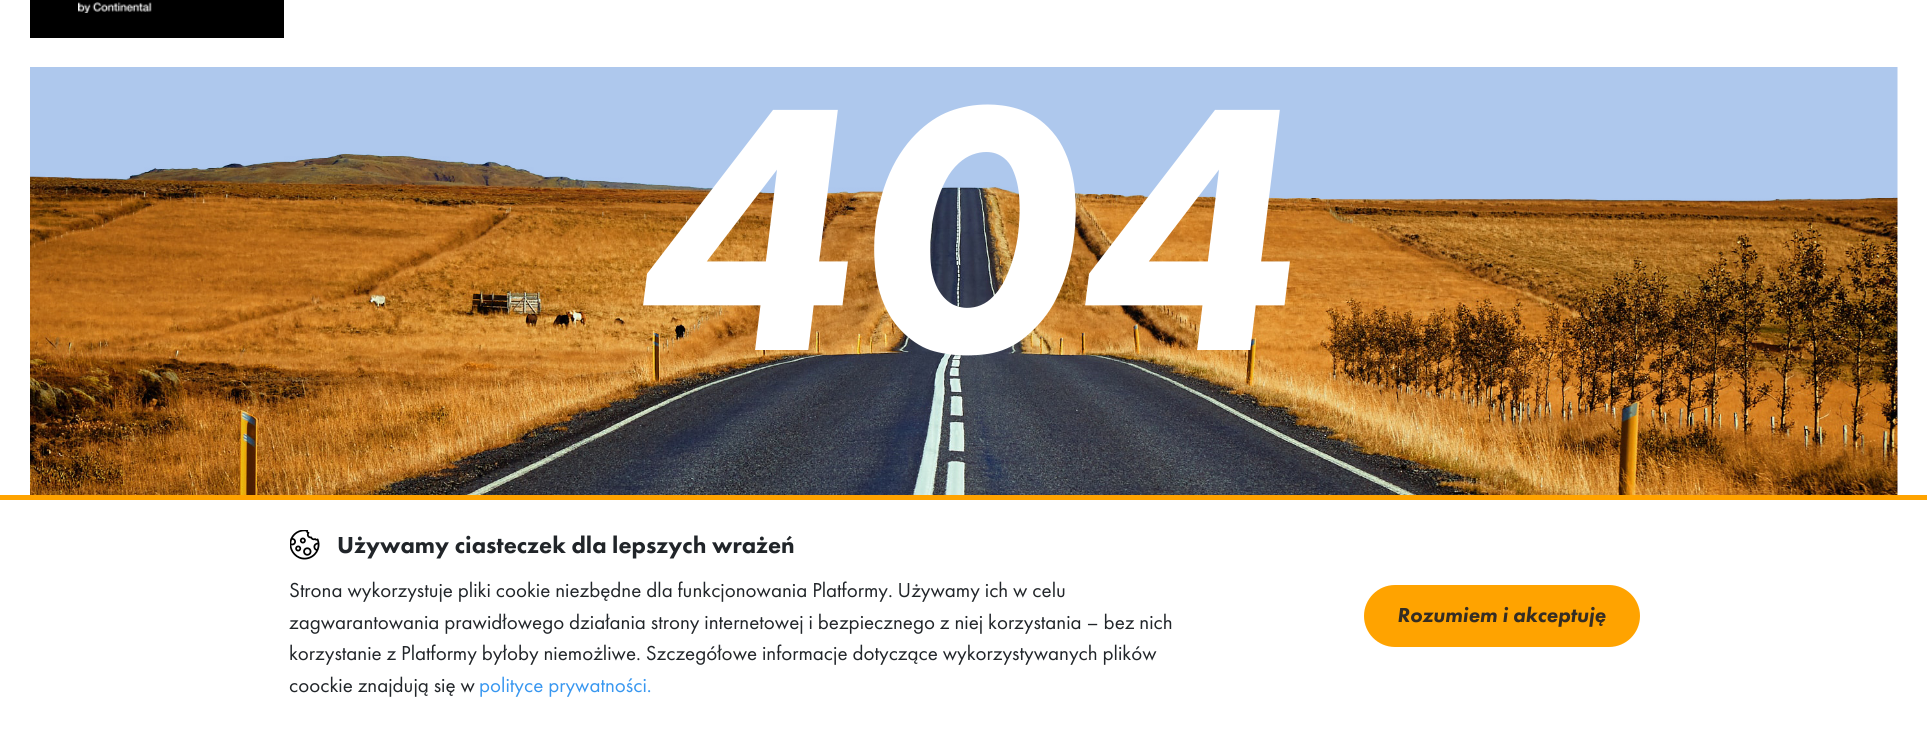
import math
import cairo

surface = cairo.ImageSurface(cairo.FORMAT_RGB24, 1927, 730)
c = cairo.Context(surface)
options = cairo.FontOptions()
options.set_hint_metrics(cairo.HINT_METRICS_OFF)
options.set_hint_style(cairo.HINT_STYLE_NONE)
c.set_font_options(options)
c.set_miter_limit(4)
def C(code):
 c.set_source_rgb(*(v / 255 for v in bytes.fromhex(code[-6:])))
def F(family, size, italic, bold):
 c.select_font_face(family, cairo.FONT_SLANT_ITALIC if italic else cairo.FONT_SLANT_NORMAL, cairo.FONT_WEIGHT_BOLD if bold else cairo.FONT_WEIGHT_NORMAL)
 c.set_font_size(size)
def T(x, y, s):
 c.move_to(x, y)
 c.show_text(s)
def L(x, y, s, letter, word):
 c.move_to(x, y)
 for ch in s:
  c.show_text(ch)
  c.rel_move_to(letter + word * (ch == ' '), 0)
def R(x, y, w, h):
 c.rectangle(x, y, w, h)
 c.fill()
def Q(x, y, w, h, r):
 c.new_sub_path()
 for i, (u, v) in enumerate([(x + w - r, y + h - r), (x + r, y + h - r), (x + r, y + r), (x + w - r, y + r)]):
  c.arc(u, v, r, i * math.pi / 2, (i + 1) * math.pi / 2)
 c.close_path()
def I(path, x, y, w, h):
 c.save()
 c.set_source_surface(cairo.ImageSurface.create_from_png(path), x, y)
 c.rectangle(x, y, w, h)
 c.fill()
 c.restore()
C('ffffff')
c.paint()
C('000000')
R(30,0,254,38)
I('1.png',78,2,74,11)
I('2.png',30,67,1868,428)
F('Futura PT Black',360,1,0)
C('ffffff')
L(633,350,'404',5,0)
C('ffa300')
R(0,495,1927,5)
I('3.png',290,530,30,30)
F('Futura PT Black',24,0,0)
C('212529')
T(337,553,'Używamy ciasteczek dla lepszych wrażeń')
F('Futura PT',21,0,0)
T(289,597,'Strona wykorzystuje pliki cookie niezbędne dla funkcjonowania Platformy. Używamy ich w celu')
T(289,629,'zagwarantowania prawidłowego działania strony internetowej i bezpiecznego z niej korzystania – bez nich')
T(289,660,'korzystanie z Platformy byłoby niemożliwe. Szczegółowe informacje dotyczące wykorzystywanych plików')
T(289,692,'coockie znajdują się w')
C('3897f0')
T(479,692,'polityce prywatności.')
C('ffa300')
Q(1364,585,276,62,31)
c.fill()
F('Futura PT Black',21,1,0)
C('352d23')
T(1397,622,'Rozumiem i akceptuję')
surface.write_to_png('o.png')
